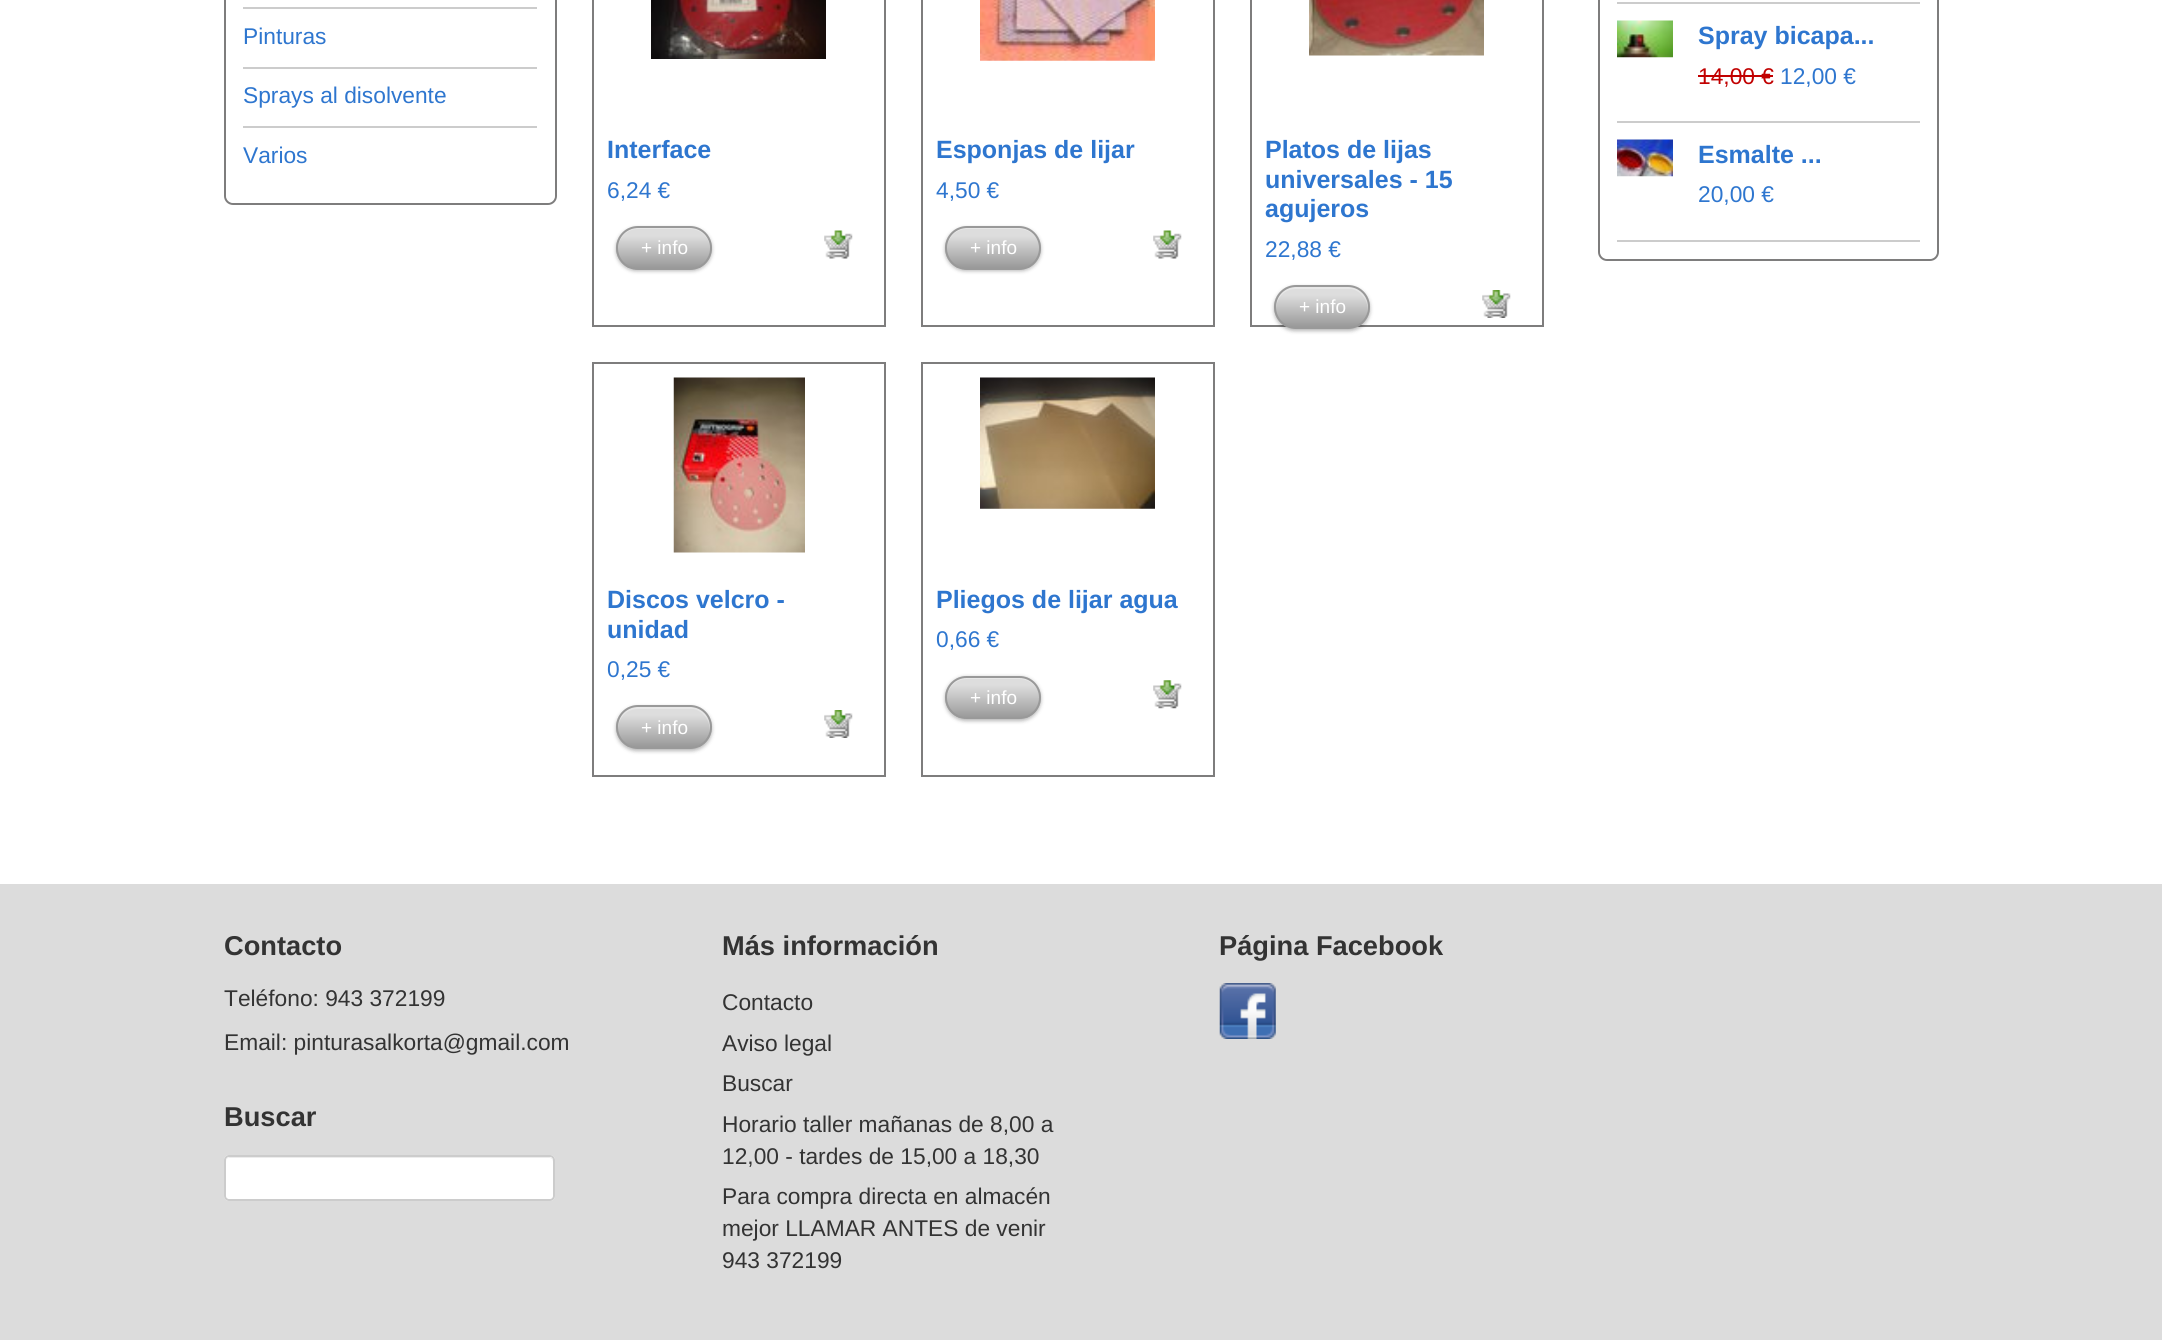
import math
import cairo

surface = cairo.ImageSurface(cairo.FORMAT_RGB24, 2162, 1340)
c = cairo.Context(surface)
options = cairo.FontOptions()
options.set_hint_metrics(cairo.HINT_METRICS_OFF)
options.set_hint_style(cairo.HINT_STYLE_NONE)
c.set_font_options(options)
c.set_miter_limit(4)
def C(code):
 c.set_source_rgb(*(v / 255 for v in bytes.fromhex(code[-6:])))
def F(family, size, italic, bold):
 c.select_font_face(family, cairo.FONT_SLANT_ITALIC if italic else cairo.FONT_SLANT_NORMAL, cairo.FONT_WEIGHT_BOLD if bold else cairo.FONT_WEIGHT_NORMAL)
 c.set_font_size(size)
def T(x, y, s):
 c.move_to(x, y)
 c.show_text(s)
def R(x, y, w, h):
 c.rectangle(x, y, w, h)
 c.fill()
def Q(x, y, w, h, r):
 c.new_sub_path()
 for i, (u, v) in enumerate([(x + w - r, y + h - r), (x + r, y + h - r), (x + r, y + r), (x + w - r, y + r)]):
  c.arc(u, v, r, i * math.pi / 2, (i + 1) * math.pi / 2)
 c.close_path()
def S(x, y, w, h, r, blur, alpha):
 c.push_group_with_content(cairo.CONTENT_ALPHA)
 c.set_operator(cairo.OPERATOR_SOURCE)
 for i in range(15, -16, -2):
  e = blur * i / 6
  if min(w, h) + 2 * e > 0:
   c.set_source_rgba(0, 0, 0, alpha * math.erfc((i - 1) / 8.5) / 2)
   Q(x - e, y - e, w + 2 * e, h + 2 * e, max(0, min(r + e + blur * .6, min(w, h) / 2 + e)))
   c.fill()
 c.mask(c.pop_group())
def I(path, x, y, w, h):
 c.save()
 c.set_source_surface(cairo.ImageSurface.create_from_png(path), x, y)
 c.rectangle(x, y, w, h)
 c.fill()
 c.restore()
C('ffffff')
c.paint()
Q(225,-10,331,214,8)
C('7e7d7d')
c.stroke()
C('ffffff')
c.new_path()
c.move_to(226,-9)
c.line_to(555,-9)
c.line_to(555,194)
c.curve_to(555,199,551,203,546,203)
c.line_to(235,203)
c.curve_to(230,203,226,199,226,194)
c.close_path()
c.fill()
C('cccccc')
R(243,7,294,2)
R(243,67,294,2)
F('Liberation Sans',22.75,0,0)
C('2e76cf')
T(243,44,'Pinturas')
C('cccccc')
R(243,126,294,2)
C('2e76cf')
T(243,103,'Sprays al disolvente')
T(243,163,'Varios')
Q(1599,-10,339,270,8)
C('7e7d7d')
c.stroke()
C('ffffff')
c.new_path()
c.move_to(1600,-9)
c.line_to(1937,-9)
c.line_to(1937,250)
c.curve_to(1937,255,1933,259,1928,259)
c.line_to(1609,259)
c.curve_to(1604,259,1600,255,1600,250)
c.close_path()
c.fill()
C('cccccc')
R(1617,2,303,2)
R(1617,121,303,2)
I('1.png',1617,20,56,38)
F('Liberation Sans',25,0,1)
C('2e76cf')
T(1698,44,'Spray bicapa...')
F('Liberation Sans',22.75,0,0)
C('c10000')
T(1698,84,'14,00 €')
R(1698,75,75,2)
C('2e76cf')
T(1780,84,'12,00 €')
C('cccccc')
R(1617,240,303,2)
I('2.png',1617,139,56,38)
F('Liberation Sans',25,0,1)
C('2e76cf')
T(1698,163,'Esmalte ...')
F('Liberation Sans',22.75,0,0)
T(1698,202,'20,00 €')
c.rectangle(593,-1,292,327)
C('7e7d7d')
c.stroke()
I('3.png',651,0,175,59)
F('Liberation Sans',25,0,1)
C('2e76cf')
T(607,158,'Interface')
F('Liberation Sans',22.75,0,0)
T(607,198,'6,24 €')
C('000000')
S(616,228,96,43,21.5,2,.29)
c.save()
Q(616,226,96,44,22)
c.clip()
gradient = cairo.LinearGradient(618,228,618,268)
gradient.add_color_stop_rgba(.2,0.867,0.867,0.867,1)
gradient.add_color_stop_rgba(1,0.6,0.6,0.6,1)
c.set_source(gradient)
R(616,228,96,40)
c.restore()
c.set_source_rgba(1,1,1,0.3)
c.new_path()
c.move_to(638,229)
c.line_to(690,229)
c.curve_to(701,229,710,238,710,249)
c.curve_to(710,253,709,257,706,261)
c.curve_to(709,257,711,253,711,248)
c.curve_to(711,237,702,228,691,228)
c.line_to(638,228)
c.curve_to(627,228,618,237,618,248)
c.line_to(618,249)
c.curve_to(618,238,627,229,638,229)
c.close_path()
c.fill()
Q(617,227,94,42,21)
C('999999')
c.stroke()
F('Liberation Sans',19,0,0)
C('ffffff')
T(641,254,'+ info')
I('4.png',824,230,29,29)
c.rectangle(922,-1,292,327)
C('7e7d7d')
c.stroke()
I('5.png',980,0,175,61)
F('Liberation Sans',25,0,1)
C('2e76cf')
T(936,158,'Esponjas de lijar')
F('Liberation Sans',22.75,0,0)
T(936,198,'4,50 €')
C('000000')
S(945,228,96,43,21.5,2,.29)
c.save()
Q(945,226,96,44,22)
c.clip()
gradient = cairo.LinearGradient(947,228,947,268)
gradient.add_color_stop_rgba(.2,0.867,0.867,0.867,1)
gradient.add_color_stop_rgba(1,0.6,0.6,0.6,1)
c.set_source(gradient)
R(945,228,96,40)
c.restore()
c.set_source_rgba(1,1,1,0.3)
c.new_path()
c.move_to(967,229)
c.line_to(1019,229)
c.curve_to(1030,229,1040,238,1040,249)
c.line_to(1040,248)
c.curve_to(1040,237,1031,228,1020,228)
c.line_to(967,228)
c.curve_to(956,228,947,237,947,248)
c.line_to(947,249)
c.curve_to(947,238,956,229,967,229)
c.close_path()
c.fill()
Q(946,227,94,42,21)
C('999999')
c.stroke()
F('Liberation Sans',19,0,0)
C('ffffff')
T(970,254,'+ info')
I('4.png',1153,230,29,29)
c.rectangle(1251,-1,292,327)
C('7e7d7d')
c.stroke()
I('6.png',1309,0,175,56)
F('Liberation Sans',25,0,1)
C('2e76cf')
T(1265,158,'Platos de lijas')
T(1265,188,'universales - 15')
T(1265,217,'agujeros')
F('Liberation Sans',22.75,0,0)
T(1265,257,'22,88 €')
C('000000')
S(1274,287,96,44,22,2,.29)
c.save()
Q(1274,285,96,44,22)
c.clip()
gradient = cairo.LinearGradient(1276,287,1276,327)
gradient.add_color_stop_rgba(.2,0.867,0.867,0.867,1)
gradient.add_color_stop_rgba(1,0.6,0.6,0.6,1)
c.set_source(gradient)
R(1274,287,96,40)
c.restore()
c.set_source_rgba(1,1,1,0.3)
c.new_path()
c.move_to(1296,289)
c.line_to(1352,289)
c.curve_to(1364,292,1371,306,1366,317)
c.curve_to(1368,314,1369,311,1369,307)
c.curve_to(1369,296,1360,287,1349,287)
c.line_to(1296,287)
c.curve_to(1285,287,1276,296,1276,307)
c.line_to(1276,308)
c.curve_to(1277,297,1285,289,1296,289)
c.close_path()
c.fill()
Q(1275,286,94,42,21)
C('999999')
c.stroke()
F('Liberation Sans',19,0,0)
C('ffffff')
T(1299,313,'+ info')
I('7.png',1482,290,29,28)
c.rectangle(593,363,292,413)
C('7e7d7d')
c.stroke()
I('8.png',673,377,132,176)
F('Liberation Sans',25,0,1)
C('2e76cf')
T(607,608,'Discos velcro -')
T(607,638,'unidad')
F('Liberation Sans',22.75,0,0)
T(607,677,'0,25 €')
C('000000')
S(616,707,96,44,22,2,.29)
c.save()
Q(616,705,96,44,22)
c.clip()
gradient = cairo.LinearGradient(618,707,618,747)
gradient.add_color_stop_rgba(.2,0.867,0.867,0.867,1)
gradient.add_color_stop_rgba(1,0.6,0.6,0.6,1)
c.set_source(gradient)
R(616,707,96,40)
c.restore()
c.set_source_rgba(1,1,1,0.3)
c.new_path()
c.move_to(638,709)
c.line_to(694,709)
c.curve_to(706,712,713,726,708,737)
c.curve_to(710,734,711,731,711,727)
c.curve_to(711,716,702,707,691,707)
c.line_to(638,707)
c.curve_to(627,707,618,716,618,727)
c.line_to(618,728)
c.curve_to(619,717,627,709,638,709)
c.close_path()
c.fill()
Q(617,706,94,42,21)
C('999999')
c.stroke()
F('Liberation Sans',19,0,0)
C('ffffff')
T(641,734,'+ info')
I('7.png',824,710,29,28)
c.rectangle(922,363,292,413)
C('7e7d7d')
c.stroke()
I('9.png',980,377,175,132)
F('Liberation Sans',25,0,1)
C('2e76cf')
T(936,608,'Pliegos de lijar agua')
F('Liberation Sans',22.75,0,0)
T(936,647,'0,66 €')
C('000000')
S(945,677,96,44,22,2,.29)
c.save()
Q(945,676,96,43,21.5)
c.clip()
gradient = cairo.LinearGradient(947,677,947,718)
gradient.add_color_stop_rgba(.2,0.867,0.867,0.867,1)
gradient.add_color_stop_rgba(1,0.6,0.6,0.6,1)
c.set_source(gradient)
R(945,677,96,41)
c.restore()
c.set_source_rgba(1,1,1,0.3)
c.new_path()
c.move_to(967,679)
c.line_to(1019,679)
c.curve_to(1030,679,1040,688,1040,698)
c.curve_to(1040,686,1031,677,1020,677)
c.line_to(968,677)
c.curve_to(956,677,947,686,947,698)
c.curve_to(947,688,956,679,967,679)
c.close_path()
c.fill()
Q(946,677,94,41,20.5)
C('999999')
c.stroke()
F('Liberation Sans',19,0,0)
C('ffffff')
T(970,704,'+ info')
I('10.png',1153,680,29,29)
C('dcdcdc')
R(0,884,2162,456)
F('Liberation Sans',27.25,0,1)
C('333333')
T(224,955,'Contacto')
F('Liberation Sans',22.75,0,0)
T(224,1006,'Teléfono: 943 372199')
T(224,1050,'Email: pinturasalkorta@gmail.com')
F('Liberation Sans',27.25,0,1)
T(224,1126,'Buscar')
C('ffffff')
Q(224,1155,331,46,5)
c.fill()
C('ececec')
c.new_path()
c.move_to(229,1158)
c.line_to(550,1158)
c.curve_to(551,1158,553,1160,553,1162)
c.line_to(553,1161)
c.curve_to(553,1159,551,1157,549,1157)
c.line_to(230,1157)
c.curve_to(228,1157,226,1159,226,1161)
c.line_to(226,1162)
c.curve_to(226,1160,227,1158,229,1158)
c.close_path()
c.fill()
Q(225,1156,329,44,4)
C('cccccc')
c.stroke()
C('333333')
T(722,955,'Más información')
F('Liberation Sans',22.75,0,0)
T(722,1010,'Contacto')
T(722,1051,'Aviso legal')
T(722,1091,'Buscar')
T(722,1132,'Horario taller mañanas de 8,00 a')
T(722,1164,'12,00 - tardes de 15,00 a 18,30')
T(722,1204,'Para compra directa en almacén')
T(722,1236,'mejor LLAMAR ANTES de venir')
T(722,1268,'943 372199')
F('Liberation Sans',27.25,0,1)
T(1219,955,'Página Facebook')
I('11.png',1219,983,57,56)
surface.write_to_png('o.png')
